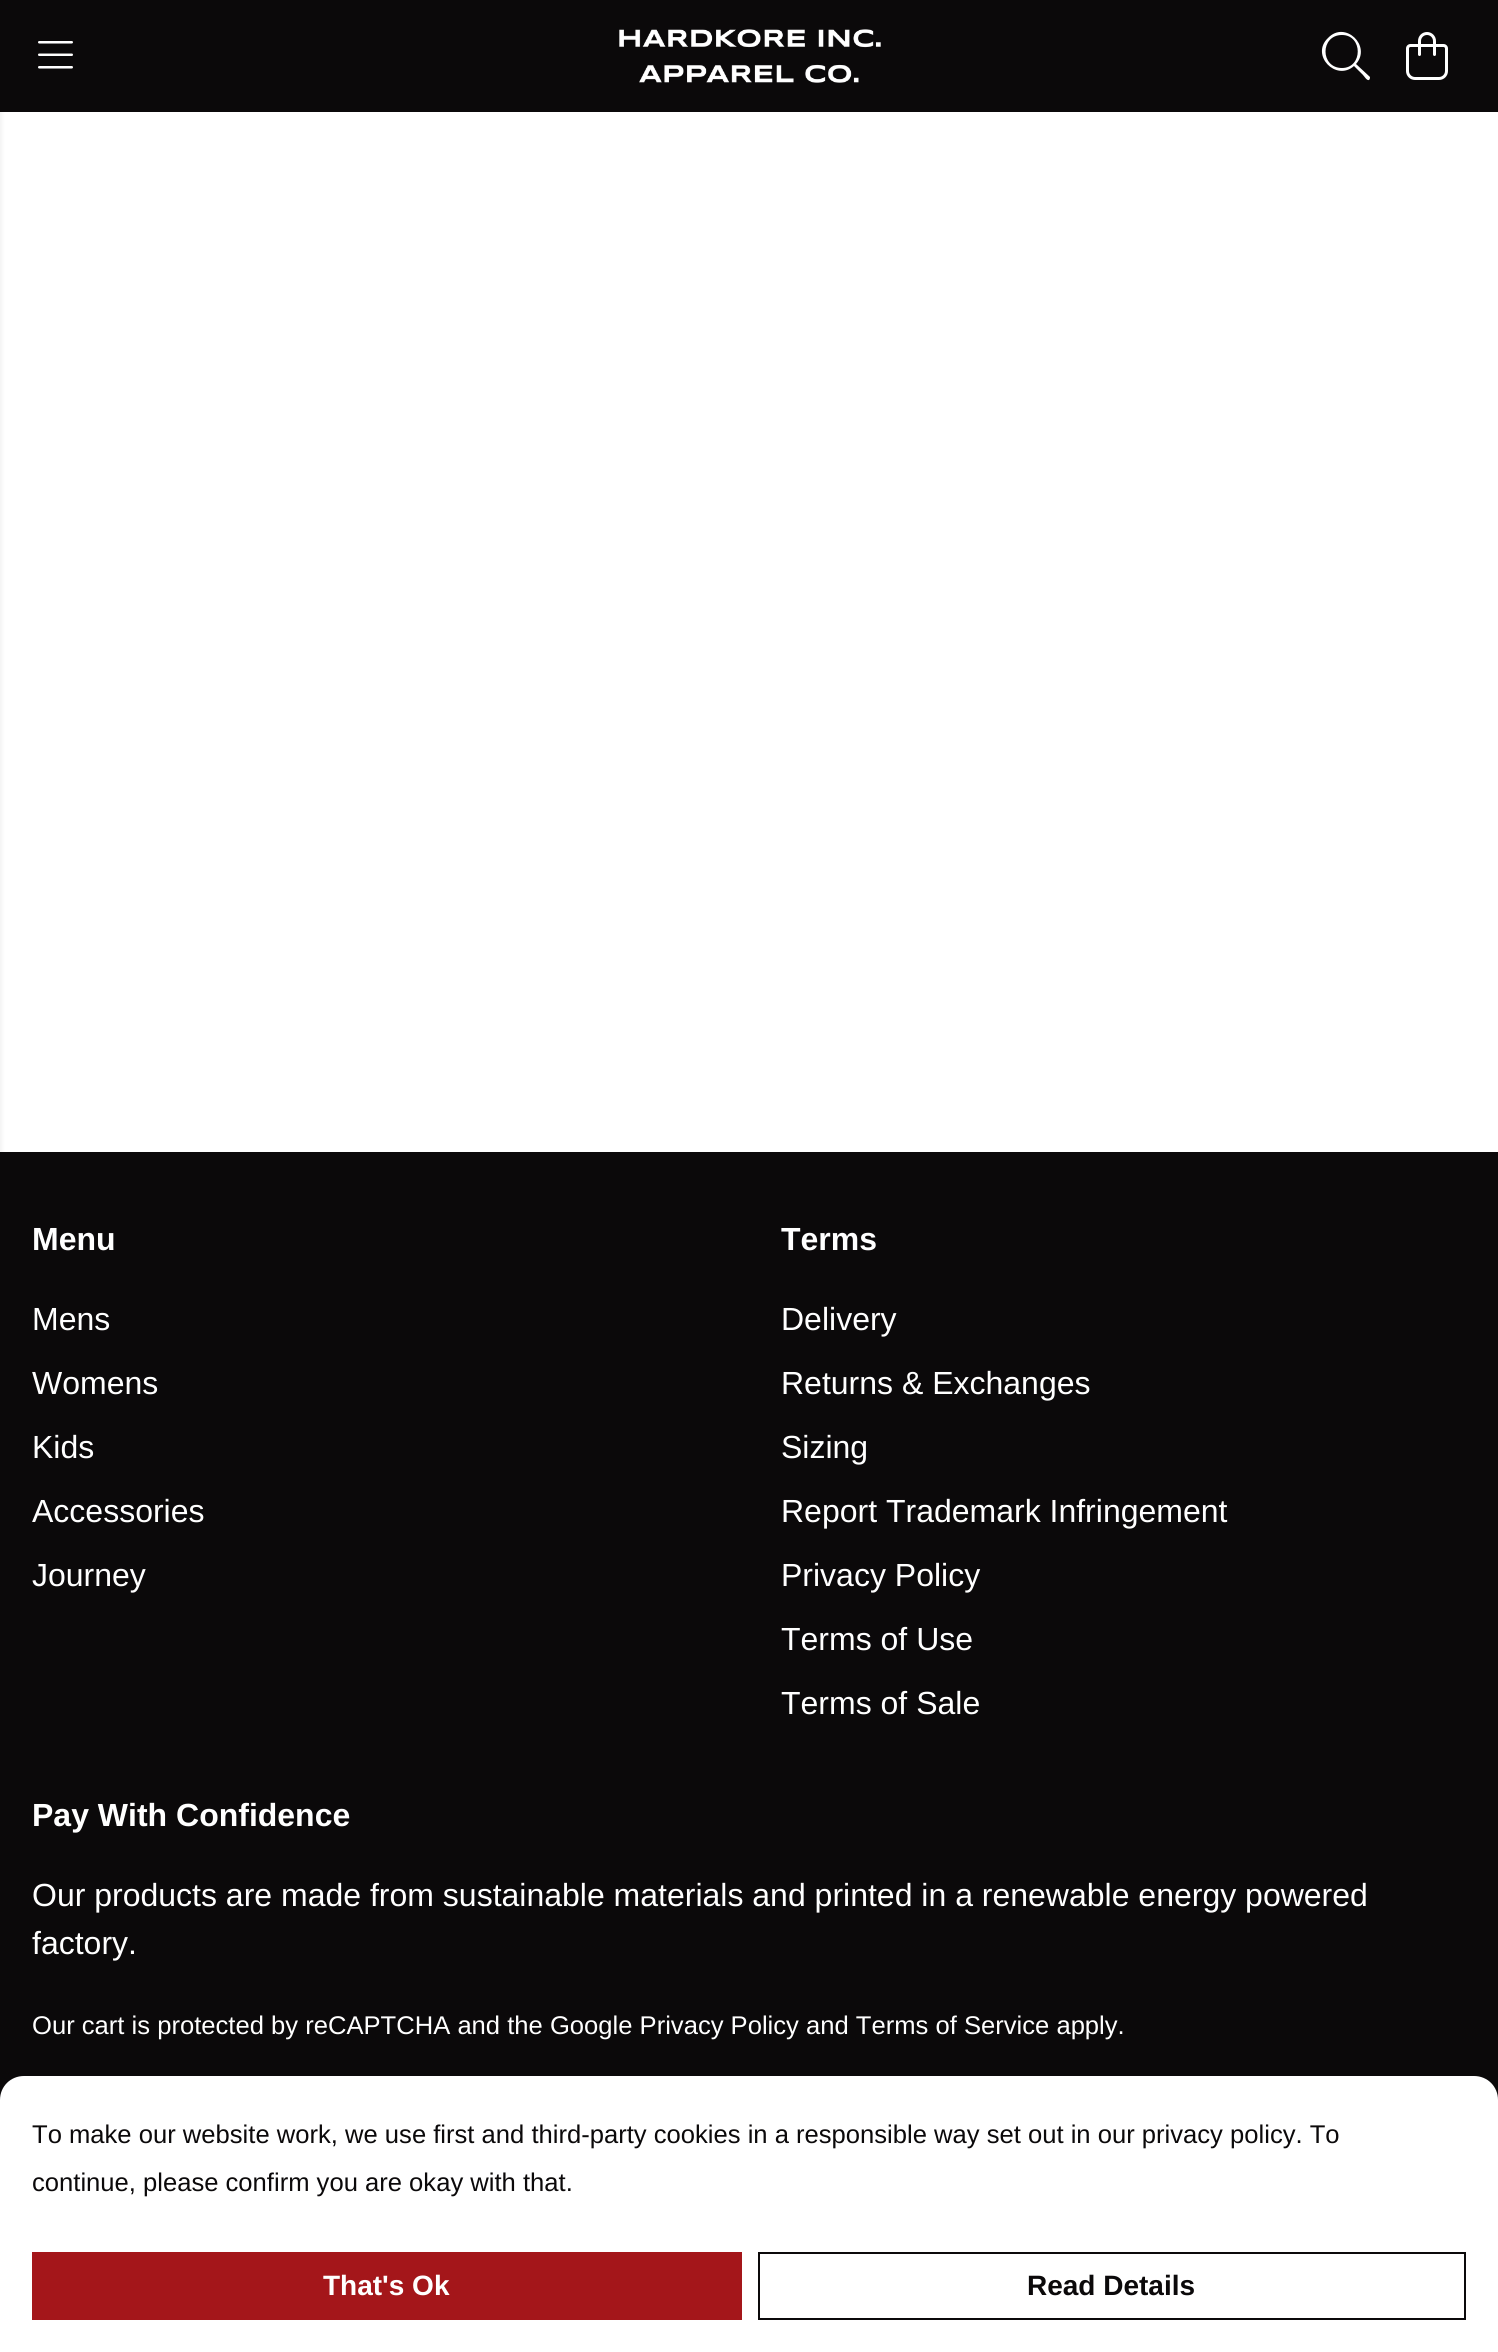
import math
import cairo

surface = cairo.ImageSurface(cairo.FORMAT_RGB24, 1498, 2352)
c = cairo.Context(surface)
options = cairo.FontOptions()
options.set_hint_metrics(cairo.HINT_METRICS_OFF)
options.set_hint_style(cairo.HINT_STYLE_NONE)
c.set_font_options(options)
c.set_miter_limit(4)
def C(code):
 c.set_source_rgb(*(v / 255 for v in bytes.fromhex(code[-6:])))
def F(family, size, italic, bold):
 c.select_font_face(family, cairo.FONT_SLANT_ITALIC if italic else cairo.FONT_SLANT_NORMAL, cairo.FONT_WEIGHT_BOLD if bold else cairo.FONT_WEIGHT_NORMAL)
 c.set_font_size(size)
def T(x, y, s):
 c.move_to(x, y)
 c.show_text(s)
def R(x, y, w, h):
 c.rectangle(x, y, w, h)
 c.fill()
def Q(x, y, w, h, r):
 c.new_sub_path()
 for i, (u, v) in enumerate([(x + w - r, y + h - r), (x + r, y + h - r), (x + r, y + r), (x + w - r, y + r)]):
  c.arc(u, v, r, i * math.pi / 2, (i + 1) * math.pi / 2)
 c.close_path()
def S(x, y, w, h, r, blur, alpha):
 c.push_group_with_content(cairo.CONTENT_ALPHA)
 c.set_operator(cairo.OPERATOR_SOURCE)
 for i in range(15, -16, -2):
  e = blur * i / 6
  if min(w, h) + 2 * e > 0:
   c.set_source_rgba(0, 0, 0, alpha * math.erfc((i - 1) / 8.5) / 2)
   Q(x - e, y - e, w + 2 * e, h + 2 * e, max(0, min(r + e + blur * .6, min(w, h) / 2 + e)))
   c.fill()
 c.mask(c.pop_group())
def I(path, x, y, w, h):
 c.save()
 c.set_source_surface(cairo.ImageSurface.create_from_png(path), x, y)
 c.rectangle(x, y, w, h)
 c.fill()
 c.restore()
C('ffffff')
c.paint()
C('0b090a')
R(0,0,1498,112)
I('1.png',38,41,35,28)
I('2.png',619,29,262,54)
C('ffffff')
c.new_path()
c.move_to(1370,77)
c.line_to(1356,64)
c.curve_to(1372,46,1345,20,1328,38)
c.curve_to(1310,55,1336,82,1354,66)
c.line_to(1363,75)
c.curve_to(1364,76,1367,81,1369,80)
c.curve_to(1370,79,1370,78,1370,77)
c.close_path()
c.move_to(1342,68)
c.curve_to(1320,68,1320,35,1342,35)
c.curve_to(1363,35,1363,68,1342,68)
c.close_path()
c.fill()
I('3.png',1406,32,42,48)
C('0b090a')
R(0,1152,1498,948)
C('000000')
S(-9,2,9,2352,0,3,.1)
F('Liberation Sans',32,0,1)
C('ffffff')
T(32,1250,'Menu')
F('Liberation Sans',32,0,0)
T(32,1330,'Mens')
T(32,1394,'Womens')
T(32,1458,'Kids')
T(32,1522,'Accessories')
T(32,1586,'Journey')
F('Liberation Sans',32,0,1)
T(781,1250,'Terms')
F('Liberation Sans',32,0,0)
T(781,1330,'Delivery')
T(781,1394,'Returns & Exchanges')
T(781,1458,'Sizing')
T(781,1522,'Report Trademark Infringement')
T(781,1586,'Privacy Policy')
T(781,1650,'Terms of Use')
T(781,1714,'Terms of Sale')
F('Liberation Sans',32,0,1)
T(32,1826,'Pay With Confidence')
F('Liberation Sans',32,0,0)
T(32,1906,'Our products are made from sustainable materials and printed in a renewable energy powered')
T(32,1954,'factory.')
F('Liberation Sans',25.6,0,0)
T(32,2034,'Our cart is protected by reCAPTCHA and the Google Privacy Policy and Terms of Service apply.')
c.new_path()
c.move_to(24,2076)
c.line_to(1474,2076)
c.curve_to(1487.5,2076,1498,2086.5,1498,2100)
c.line_to(1498,2352)
c.line_to(0,2352)
c.line_to(0,2100)
c.curve_to(0,2086.5,10.5,2076,24,2076)
c.close_path()
c.fill()
C('0b090a')
T(32,2143,'To make our website work, we use first and third-party cookies in a responsible way set out in our privacy policy. To')
T(32,2191,'continue, please confirm you are okay with that.')
C('a4161a')
R(32,2252,710,68)
F('Liberation Sans',28,0,1)
C('ffffff')
T(323,2295,'That\'s Ok')
c.rectangle(759,2253,706,66)
C('0b090a')
c.stroke()
T(1027,2295,'Read Details')
surface.write_to_png('o.png')
